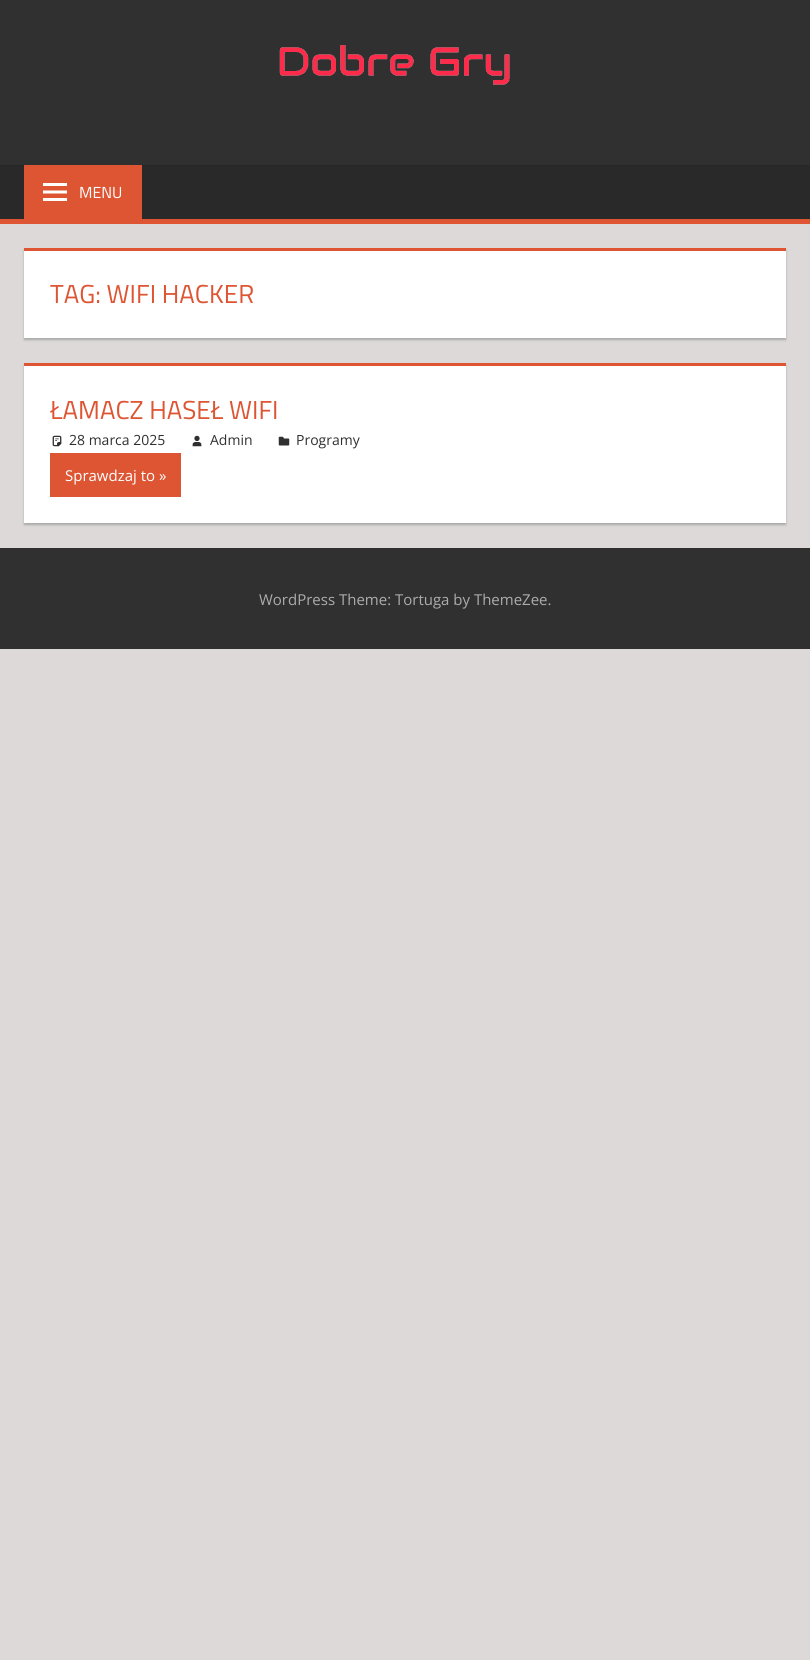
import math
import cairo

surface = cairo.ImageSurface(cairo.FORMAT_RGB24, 810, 1660)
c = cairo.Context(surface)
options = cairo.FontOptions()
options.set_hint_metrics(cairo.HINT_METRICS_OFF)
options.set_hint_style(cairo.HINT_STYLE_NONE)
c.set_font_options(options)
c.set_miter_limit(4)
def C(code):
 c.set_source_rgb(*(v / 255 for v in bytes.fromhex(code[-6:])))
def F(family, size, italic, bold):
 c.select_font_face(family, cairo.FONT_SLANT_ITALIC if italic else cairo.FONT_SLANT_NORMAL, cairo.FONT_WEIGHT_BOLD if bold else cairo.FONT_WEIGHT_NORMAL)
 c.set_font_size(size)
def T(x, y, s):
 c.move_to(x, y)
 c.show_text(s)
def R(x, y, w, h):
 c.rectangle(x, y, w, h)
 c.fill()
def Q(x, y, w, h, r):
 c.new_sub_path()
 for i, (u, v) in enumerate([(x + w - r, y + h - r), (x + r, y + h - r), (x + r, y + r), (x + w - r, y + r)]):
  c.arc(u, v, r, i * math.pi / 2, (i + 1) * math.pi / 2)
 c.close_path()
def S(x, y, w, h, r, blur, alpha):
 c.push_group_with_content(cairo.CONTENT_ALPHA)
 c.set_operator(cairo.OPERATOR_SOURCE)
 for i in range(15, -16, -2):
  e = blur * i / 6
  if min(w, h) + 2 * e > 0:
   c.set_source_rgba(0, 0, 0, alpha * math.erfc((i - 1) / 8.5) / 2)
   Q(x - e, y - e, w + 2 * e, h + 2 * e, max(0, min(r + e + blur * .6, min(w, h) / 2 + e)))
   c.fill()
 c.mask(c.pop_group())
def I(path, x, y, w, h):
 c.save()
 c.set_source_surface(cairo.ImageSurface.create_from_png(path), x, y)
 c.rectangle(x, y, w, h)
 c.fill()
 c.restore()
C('ddd9d9')
c.paint()
C('303030')
R(0,0,810,165)
I('1.png',279,45,231,40)
C('292929')
R(0,166,810,53)
C('272727')
R(0,165,810,1)
C('dd5533')
R(0,219,810,5)
R(24,165,118,54)
I('2.png',43,183,24,18)
F('Titillium Web',16,0,0)
C('ffffff')
T(79,198,'MENU')
C('aaaaaa')
S(24,250,762,90,0,1,1)
C('ffffff')
R(24,251,762,87)
C('dd5533')
R(24,248,762,3)
F('Titillium Web',26,0,0)
T(50,303,'TAG: WIFI HACKER')
C('aaaaaa')
S(24,365,762,160,0,1,1)
C('ffffff')
R(24,366,762,157)
C('dd5533')
R(24,363,762,3)
T(50,419,'ŁAMACZ HASEŁ WIFI')
I('3.png',52,435,10,12)
F('Open Sans',14,0,0)
C('303030')
T(69,445,'28 marca 2025')
I('4.png',192,435,10,12)
T(210,445,'Admin')
I('5.png',278,436,12,10)
T(296,445,'Programy')
C('dd5533')
R(50,453,131,44)
F('Open Sans',15,0,0)
C('ffffff')
T(65,481,'Sprawdzaj to »')
C('303030')
R(0,548,810,101)
C('acacac')
T(259,605,'WordPress Theme: Tortuga by ThemeZee.')
surface.write_to_png('o.png')
